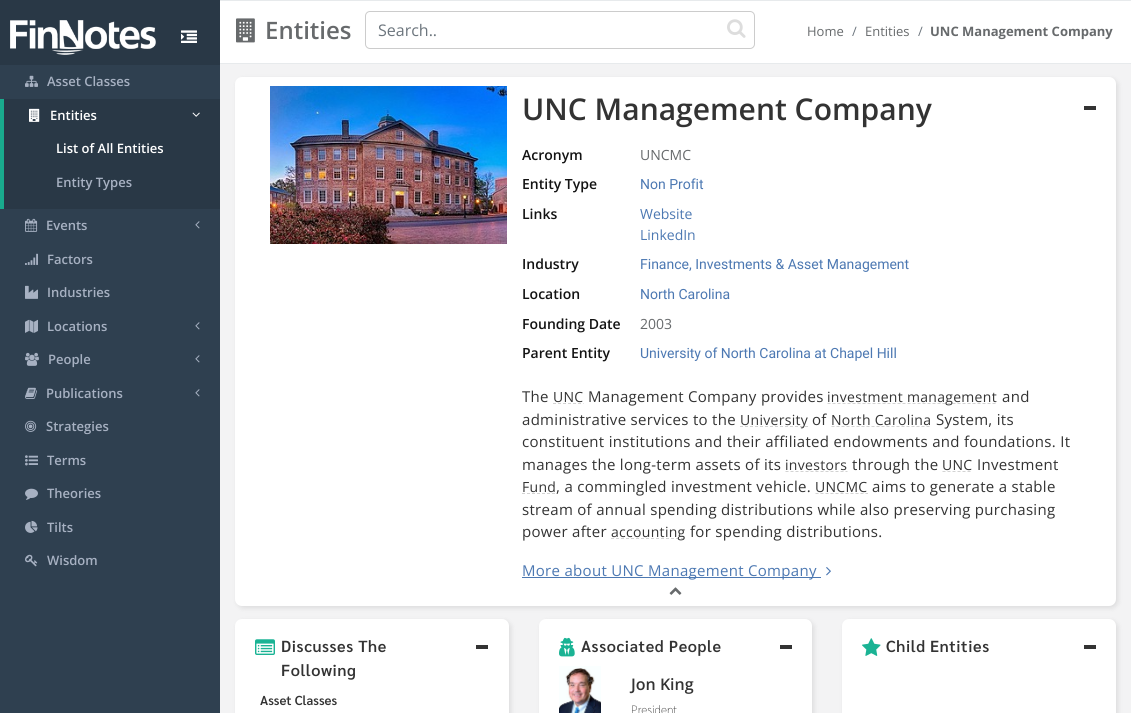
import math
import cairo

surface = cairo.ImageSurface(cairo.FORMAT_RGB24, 1131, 713)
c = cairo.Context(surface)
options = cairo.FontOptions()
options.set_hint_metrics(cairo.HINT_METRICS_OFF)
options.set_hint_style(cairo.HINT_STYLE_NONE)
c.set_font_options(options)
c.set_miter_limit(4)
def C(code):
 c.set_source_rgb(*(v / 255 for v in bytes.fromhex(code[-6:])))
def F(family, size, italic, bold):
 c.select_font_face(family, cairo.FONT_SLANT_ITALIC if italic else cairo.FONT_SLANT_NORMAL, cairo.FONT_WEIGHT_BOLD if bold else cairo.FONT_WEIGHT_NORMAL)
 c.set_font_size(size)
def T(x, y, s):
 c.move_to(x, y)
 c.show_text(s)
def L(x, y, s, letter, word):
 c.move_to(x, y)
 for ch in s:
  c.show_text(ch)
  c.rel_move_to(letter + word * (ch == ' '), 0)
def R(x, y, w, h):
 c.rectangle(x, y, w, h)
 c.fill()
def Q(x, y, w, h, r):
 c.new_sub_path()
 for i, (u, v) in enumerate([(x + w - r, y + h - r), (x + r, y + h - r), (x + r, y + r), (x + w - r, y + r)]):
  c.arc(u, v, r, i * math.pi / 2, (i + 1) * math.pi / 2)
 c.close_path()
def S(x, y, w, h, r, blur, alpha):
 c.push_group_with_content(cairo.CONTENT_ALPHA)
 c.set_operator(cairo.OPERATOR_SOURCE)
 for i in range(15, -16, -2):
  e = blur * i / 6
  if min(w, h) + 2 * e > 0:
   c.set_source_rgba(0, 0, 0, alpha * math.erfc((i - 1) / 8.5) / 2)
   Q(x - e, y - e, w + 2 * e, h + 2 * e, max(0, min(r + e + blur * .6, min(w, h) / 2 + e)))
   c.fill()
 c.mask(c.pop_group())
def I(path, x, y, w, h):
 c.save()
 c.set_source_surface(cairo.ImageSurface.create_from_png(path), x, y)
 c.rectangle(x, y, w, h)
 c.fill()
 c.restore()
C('2f4050')
c.paint()
C('293846')
R(0,0,220,65)
I('1.png',10,20,146,35)
I('2.png',181,30,16,13)
I('3.png',25,75,13,12)
F('Open Sans SemiBold',13,0,0)
C('a7b1c2')
T(47,86,'Asset Classes')
C('293846')
R(4,99,216,110)
C('19aa8d')
R(0,99,4,110)
I('4.png',29,108,11,14)
C('ffffff')
T(50,120,'Entities')
I('5.png',192,112,8,5)
T(56,153,'List of All Entities')
C('a7b1c2')
T(56,187,'Entity Types')
I('6.png',25,218,13,14)
T(46,230,'Events')
I('7.png',195,221,5,8)
I('8.png',25,253,13,12)
T(47,264,'Factors')
I('9.png',25,285,13,14)
T(47,297,'Industries')
I('10.png',25,319,13,14)
T(47,331,'Locations')
I('7.png',195,322,5,8)
I('11.png',25,352,14,14)
T(48,364,'People')
I('7.png',195,355,5,8)
I('12.png',25,387,12,12)
T(46,398,'Publications')
I('7.png',195,389,5,8)
I('13.png',25,420,12,12)
T(46,431,'Strategies')
I('14.png',25,455,13,11)
T(47,465,'Terms')
I('15.png',25,488,13,12)
T(47,498,'Theories')
I('16.png',25,520,13,13)
T(47,532,'Tilts')
I('17.png',25,554,13,13)
T(47,565,'Wisdom')
C('f3f3f4')
R(220,64,911,649)
C('e7eaec')
R(220,0,911,1)
C('ffffff')
R(220,1,911,62)
C('e7eaec')
R(220,63,911,1)
I('18.png',236,18,19,25)
F('Open Sans SemiBold',24,0,0)
C('676a6c')
T(265,39,'Entities')
Q(365.5,11.5,389,37,4.5)
C('cccccc')
c.set_line_width(1)
c.stroke()
F('Open Sans',16,0,0)
C('6c757d')
T(378,36,'Search..')
I('19.png',727,19,19,19)
F('Open Sans',13,0,0)
C('676a6c')
T(807,36,'Home')
C('6c757d')
T(852,36,'/')
C('676a6c')
T(865,36,'Entities')
C('6c757d')
T(918,36,'/')
F('Open Sans',13,0,1)
C('676a6c')
T(930,36,'UNC Management Company')
C('000000')
S(237,79,881,529,7,2.5,.1)
C('ffffff')
Q(235,77,881,529,7)
c.fill()
I('20.png',270,86,237,158)
F('Open Sans SemiBold',30,0,0)
C('333333')
T(522,120,'UNC Management Company')
R(1084,106,12,4)
F('Open Sans SemiBold',14,0,0)
C('131313')
T(522,160,'Acronym')
F('Open Sans',14,0,0)
C('676a6c')
T(640,160,'UNCMC')
F('Open Sans SemiBold',14,0,0)
C('131313')
T(522,189,'Entity Type')
F('Roboto',14,0,0)
C('4c78b2')
T(640,189,'Non Profit')
F('Open Sans SemiBold',14,0,0)
C('131313')
T(522,219,'Links')
F('Open Sans',14,0,0)
C('4c78b2')
T(640,219,'Website')
T(640,240,'LinkedIn')
F('Open Sans SemiBold',14,0,0)
C('131313')
T(522,269,'Industry')
F('Roboto',14,0,0)
C('4c78b2')
T(640,269,'Finance, Investments & Asset Management')
F('Open Sans SemiBold',14,0,0)
C('131313')
T(522,299,'Location')
F('Roboto',14,0,0)
C('4c78b2')
T(640,299,'North Carolina')
F('Open Sans SemiBold',14,0,0)
C('131313')
T(522,329,'Founding Date')
F('Open Sans',14,0,0)
C('676a6c')
T(640,329,'2003')
F('Open Sans SemiBold',14,0,0)
C('131313')
T(522,358,'Parent Entity')
F('Roboto',14,0,0)
C('4c78b2')
T(640,358,'University of North Carolina at Chapel Hill')
F('Open Sans',15,0,0)
C('333333')
L(522,402,'The',.3,0)
F('Open Sans',14,0,0)
L(553,402,'UNC',.3,0)
c.new_path()
c.move_to(553,403.5)
c.line_to(583.5,403.5)
C('d3d3d3')
c.set_dash([3,2])
c.stroke()
F('Open Sans',15,0,0)
C('333333')
L(588,402,'Management Company provides',.3,0)
c.new_path()
c.move_to(827.5,403.5)
c.line_to(997.5,403.5)
C('d3d3d3')
c.stroke()
F('Open Sans',14,0,0)
C('333333')
L(827,402,'investment management',.3,0)
F('Open Sans',15,0,0)
L(1002,402,'and',.3,0)
L(522,425,'administrative services to the',.3,0)
c.new_path()
c.move_to(740,426.5)
c.line_to(808.5,426.5)
C('d3d3d3')
c.stroke()
F('Open Sans',14,0,0)
C('333333')
L(740,425,'University',.3,0)
F('Open Sans',15,0,0)
L(812,425,'of',.3,0)
F('Open Sans',14,0,0)
L(831,425,'North Carolina',.3,0)
c.new_path()
c.move_to(831.5,426.5)
c.line_to(931.5,426.5)
C('d3d3d3')
c.stroke()
F('Open Sans',15,0,0)
C('333333')
L(936,425,'System, its',.3,0)
L(522,447,'constituent institutions and their affiliated endowments and foundations. It',.3,0)
L(522,470,'manages the long-term assets of its',.3,0)
F('Open Sans',14,0,0)
L(785,470,'investors',.3,0)
c.new_path()
c.move_to(785.5,471.5)
c.line_to(847.5,471.5)
C('d3d3d3')
c.stroke()
F('Open Sans',15,0,0)
C('333333')
L(852,470,'through the',.3,0)
F('Open Sans',14,0,0)
L(942,470,'UNC',.3,0)
c.new_path()
c.move_to(942.5,471.5)
c.line_to(972.5,471.5)
C('d3d3d3')
c.stroke()
F('Open Sans',15,0,0)
C('333333')
L(977,470,'Investment',.3,0)
F('Open Sans',14,0,0)
L(522,492,'Fund',.3,0)
c.new_path()
c.move_to(522,493.5)
c.line_to(556,493.5)
C('d3d3d3')
c.stroke()
F('Open Sans',15,0,0)
C('333333')
L(556,492,', a commingled investment vehicle.',.3,0)
F('Open Sans',14,0,0)
L(815,492,'UNCMC',.3,0)
c.new_path()
c.move_to(815.5,493.5)
c.line_to(868,493.5)
C('d3d3d3')
c.stroke()
F('Open Sans',15,0,0)
C('333333')
L(872,492,'aims to generate a stable',.3,0)
L(522,515,'stream of annual spending distributions while also preserving purchasing',.3,0)
L(522,537,'power after',.3,0)
c.new_path()
c.move_to(611,538.5)
c.line_to(685.5,538.5)
C('d3d3d3')
c.stroke()
F('Open Sans',14,0,0)
C('333333')
L(611,537,'accounting',.3,0)
F('Open Sans',15,0,0)
L(690,537,'for spending distributions.',.3,0)
C('4c78b2')
R(522,577,299,1)
L(522,576,'More about UNC Management Company',.3,0)
I('21.png',826,567,5,9)
I('22.png',669,587,13,8)
C('000000')
S(237,621,274,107,7,2.5,.1)
C('ffffff')
Q(235,619,274,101,7)
c.fill()
I('23.png',255,639,20,16)
F('Sarabun SemiBold',16,0,0)
C('333333')
L(281,652,'Discusses The',.6,0)
L(281,676,'Following',.6,0)
R(476,645,12,4)
F('Sarabun SemiBold',13,0,0)
T(260,705,'Asset Classes')
C('000000')
S(541,621,273,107,7,2.5,.1)
C('ffffff')
Q(539,619,273,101,7)
c.fill()
I('24.png',559,637,16,20)
F('Sarabun SemiBold',16,0,0)
C('333333')
L(581,652,'Associated People',.6,0)
R(780,645,12,4)
I('25.png',559,666,42,47)
F('Open Sans SemiBold',16,0,0)
T(631,690,'Jon King')
F('Sarabun ExtraLight',12,0,0)
T(631,714,'President')
C('000000')
S(844,621,274,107,7,2.5,.1)
C('ffffff')
Q(842,619,274,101,7)
c.fill()
I('26.png',862,638,19,18)
F('Sarabun SemiBold',16,0,0)
C('333333')
L(886,652,'Child Entities',.6,0)
R(1084,645,12,4)
surface.write_to_png('o.png')
